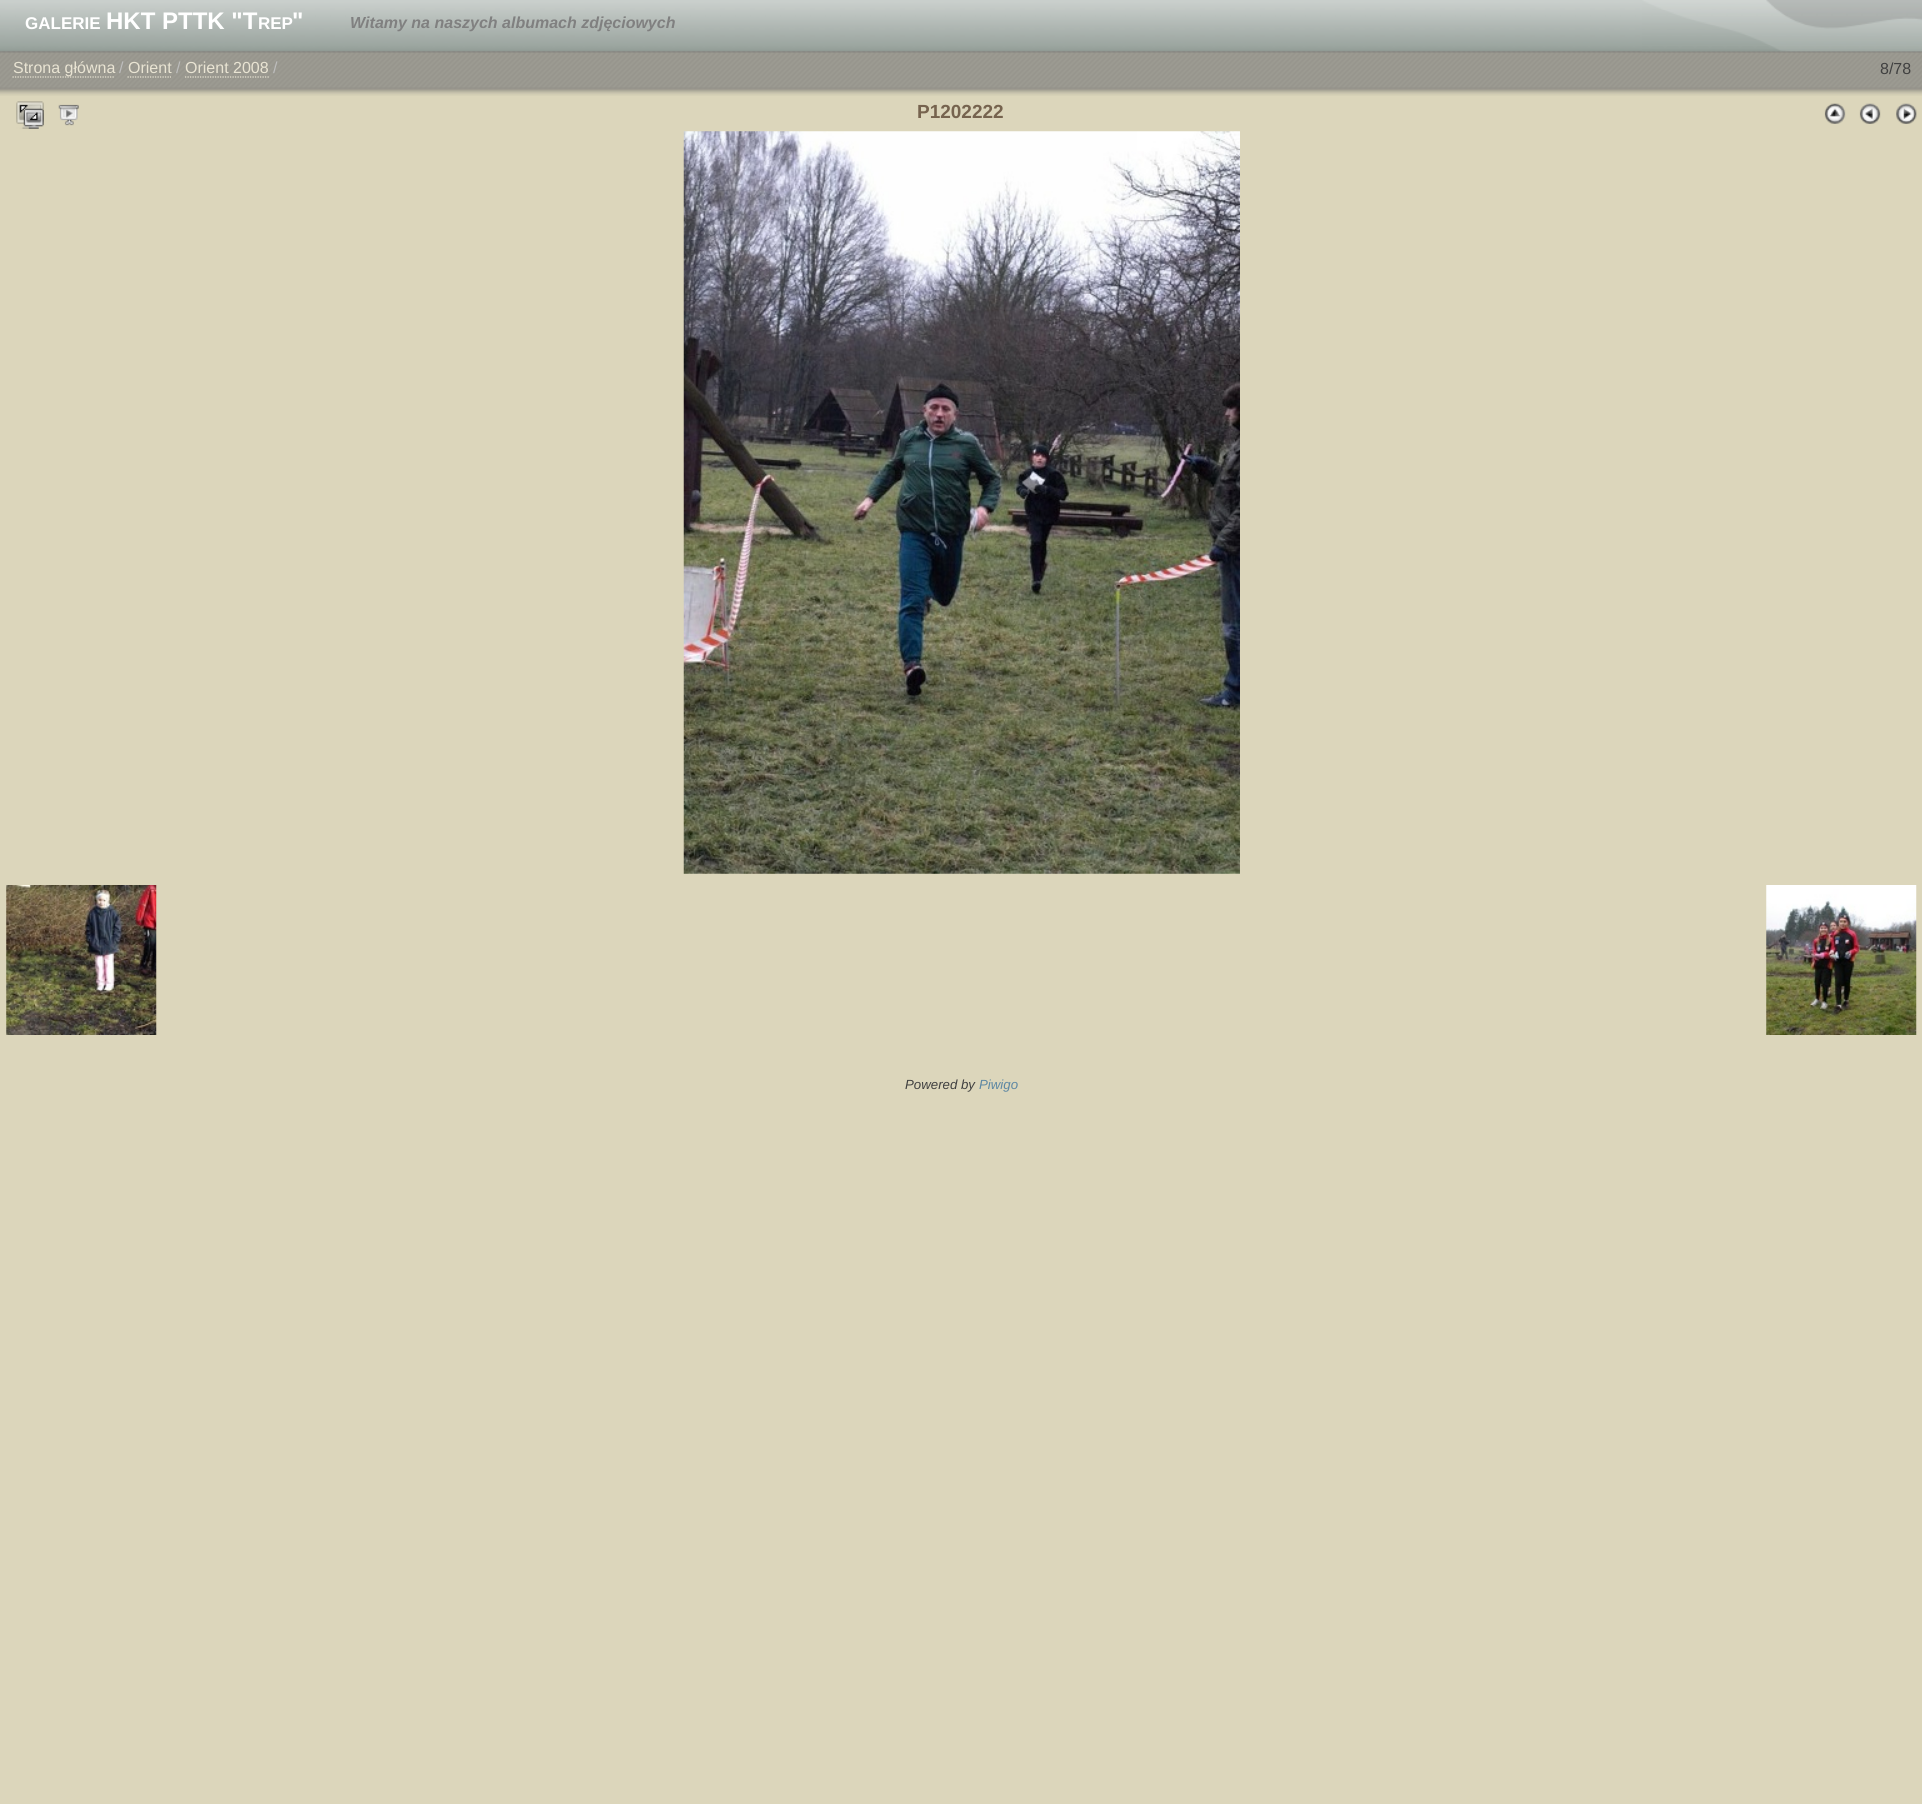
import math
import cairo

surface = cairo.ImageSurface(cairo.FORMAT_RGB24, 1922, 1804)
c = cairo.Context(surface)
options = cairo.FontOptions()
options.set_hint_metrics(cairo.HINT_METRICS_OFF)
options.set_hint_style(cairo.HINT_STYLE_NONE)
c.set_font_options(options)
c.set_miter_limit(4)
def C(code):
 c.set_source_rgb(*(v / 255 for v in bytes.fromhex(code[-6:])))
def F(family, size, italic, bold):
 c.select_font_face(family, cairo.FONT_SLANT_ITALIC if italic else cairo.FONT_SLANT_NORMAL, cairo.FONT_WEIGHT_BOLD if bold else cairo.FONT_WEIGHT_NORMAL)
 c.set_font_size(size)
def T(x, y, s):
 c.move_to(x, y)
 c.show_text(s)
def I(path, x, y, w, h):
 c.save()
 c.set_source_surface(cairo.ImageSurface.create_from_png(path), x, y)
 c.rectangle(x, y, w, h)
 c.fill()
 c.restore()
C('dcd6bb')
c.paint()
I('1.png',0,0,1922,96)
I('2.png',1642,0,280,52)
F('Liberation Sans',24,0,1)
C('ffffff')
T(106,29,'HKT PTTK "T')
T(292,29,'"')
F('Liberation Sans',17,0,1)
T(25,29,'GALERIE')
T(258,29,'REP')
F('Liberation Sans',16,1,1)
C('808080')
T(350,28,'Witamy na naszych albumach zdjęciowych')
c.new_path()
c.move_to(12.5,77)
c.line_to(115,77)
C('e9e4d3')
c.set_line_width(1.2)
c.set_dash([1.25,1.25])
c.stroke()
F('Liberation Sans',16,0,0)
T(13,73,'Strona główna')
C('bdbdbd')
T(119,73,'/')
C('e9e4d3')
T(128,73,'Orient')
c.new_path()
c.move_to(127.5,77)
c.line_to(171,77)
c.stroke()
C('bdbdbd')
T(176,73,'/')
C('e9e4d3')
T(185,73,'Orient 2008')
c.new_path()
c.move_to(185,77)
c.line_to(269,77)
c.stroke()
C('bdbdbd')
T(273,73,'/')
F('Liberation Sans',19,0,1)
C('76634e')
T(917,118,'P1202222')
F('Liberation Sans',16,0,0)
C('404040')
T(1880,74,'8/78')
I('3.png',16,101,28,28)
I('4.png',58,104,21,22)
I('5.png',1824,103,22,21)
I('6.png',1859,103,22,21)
I('7.png',1896,103,21,21)
I('8.png',683,131,557,743)
I('9.png',6,885,151,150)
I('10.png',1766,885,151,150)
F('Liberation Sans',13.25,1,0)
T(905,1089,'Powered by')
C('5d87a3')
T(979,1089,'Piwigo')
surface.write_to_png('o.png')
